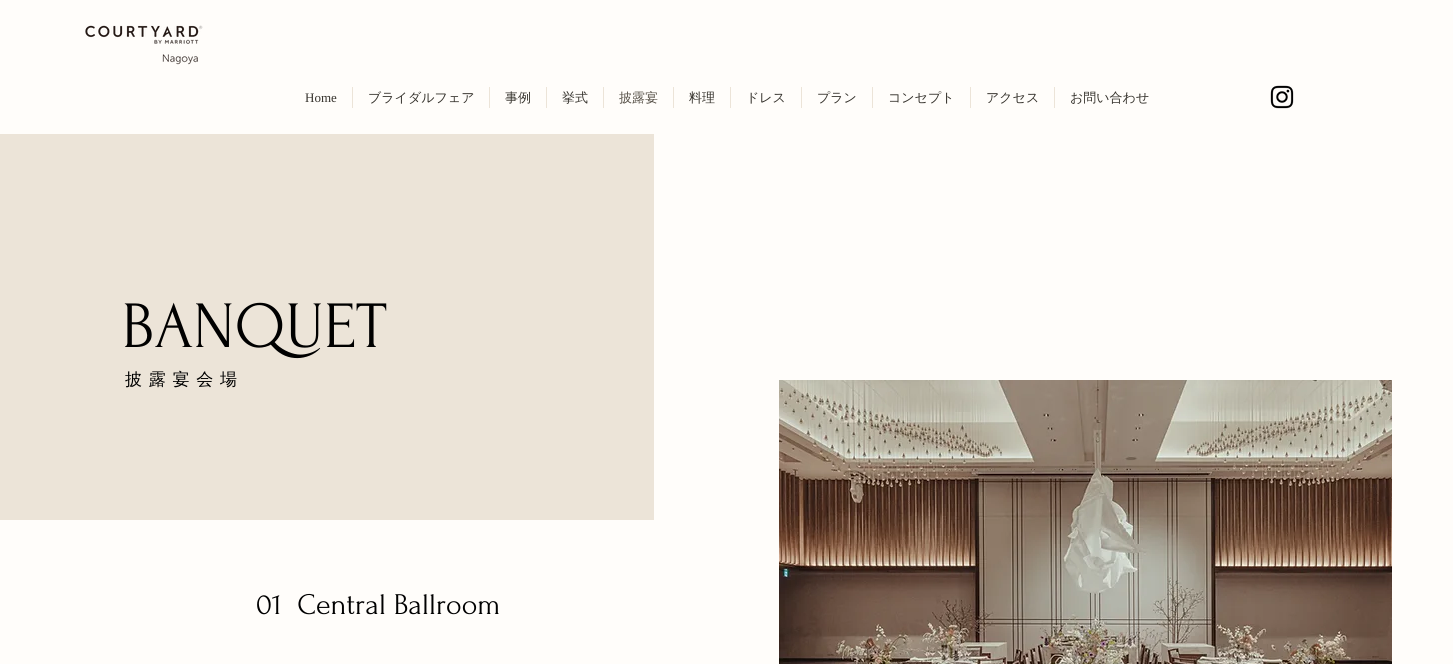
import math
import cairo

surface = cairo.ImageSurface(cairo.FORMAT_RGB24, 1453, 664)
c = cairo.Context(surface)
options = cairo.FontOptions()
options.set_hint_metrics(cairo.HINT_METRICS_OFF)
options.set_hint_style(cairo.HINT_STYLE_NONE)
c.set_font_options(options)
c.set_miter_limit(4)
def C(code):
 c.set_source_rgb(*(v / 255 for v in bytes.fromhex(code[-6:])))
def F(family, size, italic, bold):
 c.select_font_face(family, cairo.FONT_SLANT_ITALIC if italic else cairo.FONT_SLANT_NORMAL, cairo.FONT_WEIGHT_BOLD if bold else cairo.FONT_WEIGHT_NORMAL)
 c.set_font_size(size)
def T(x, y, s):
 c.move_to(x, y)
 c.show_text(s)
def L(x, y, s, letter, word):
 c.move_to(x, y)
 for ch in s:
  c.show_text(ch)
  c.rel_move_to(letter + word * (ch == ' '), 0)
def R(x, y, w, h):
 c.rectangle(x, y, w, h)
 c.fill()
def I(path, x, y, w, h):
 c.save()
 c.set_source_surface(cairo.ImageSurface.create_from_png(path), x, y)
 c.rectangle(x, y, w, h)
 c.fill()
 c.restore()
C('fffdfa')
c.paint()
I('1.png',85,25,118,40)
I('2.png',1270,85,24,24)
F('Liberation Serif',13,0,0)
C('36332d')
T(305,102,'Home')
C('ece4d8')
R(352,87,1,21)
F('WenQuanYi Zen Hei Medium',13,0,0)
C('36332d')
T(368,102,'ブライダルフェア')
C('ece4d8')
R(489,87,1,21)
C('36332d')
T(505,102,'事例')
C('ece4d8')
R(546,87,1,21)
C('36332d')
T(562,102,'挙式')
C('ece4d8')
R(603,87,1,21)
C('59534a')
T(619,102,'披露宴')
C('ece4d8')
R(673,87,1,21)
C('36332d')
T(689,102,'料理')
C('ece4d8')
R(730,87,1,21)
C('36332d')
T(746,102,'ドレス')
C('ece4d8')
R(801,87,1,21)
C('36332d')
T(817,102,'プラン')
C('ece4d8')
R(872,87,1,21)
C('36332d')
T(888,102,'コンセプト')
C('ece4d8')
R(970,87,1,21)
C('36332d')
T(986,102,'アクセス')
C('ece4d8')
R(1054,87,1,21)
C('36332d')
T(1070,102,'お問い合わせ')
C('ece4d8')
R(0,134,654,386)
F('Forum',66,0,0)
C('000000')
T(122,347,'BANQUET')
F('WenQuanYi Zen Hei Medium',17,0,0)
L(125,385,'披露宴会場',6.75,0)
F('Forum',30,0,0)
T(256,614,'01  Central Ballroom')
I('3.png',779,380,613,284)
surface.write_to_png('o.png')
